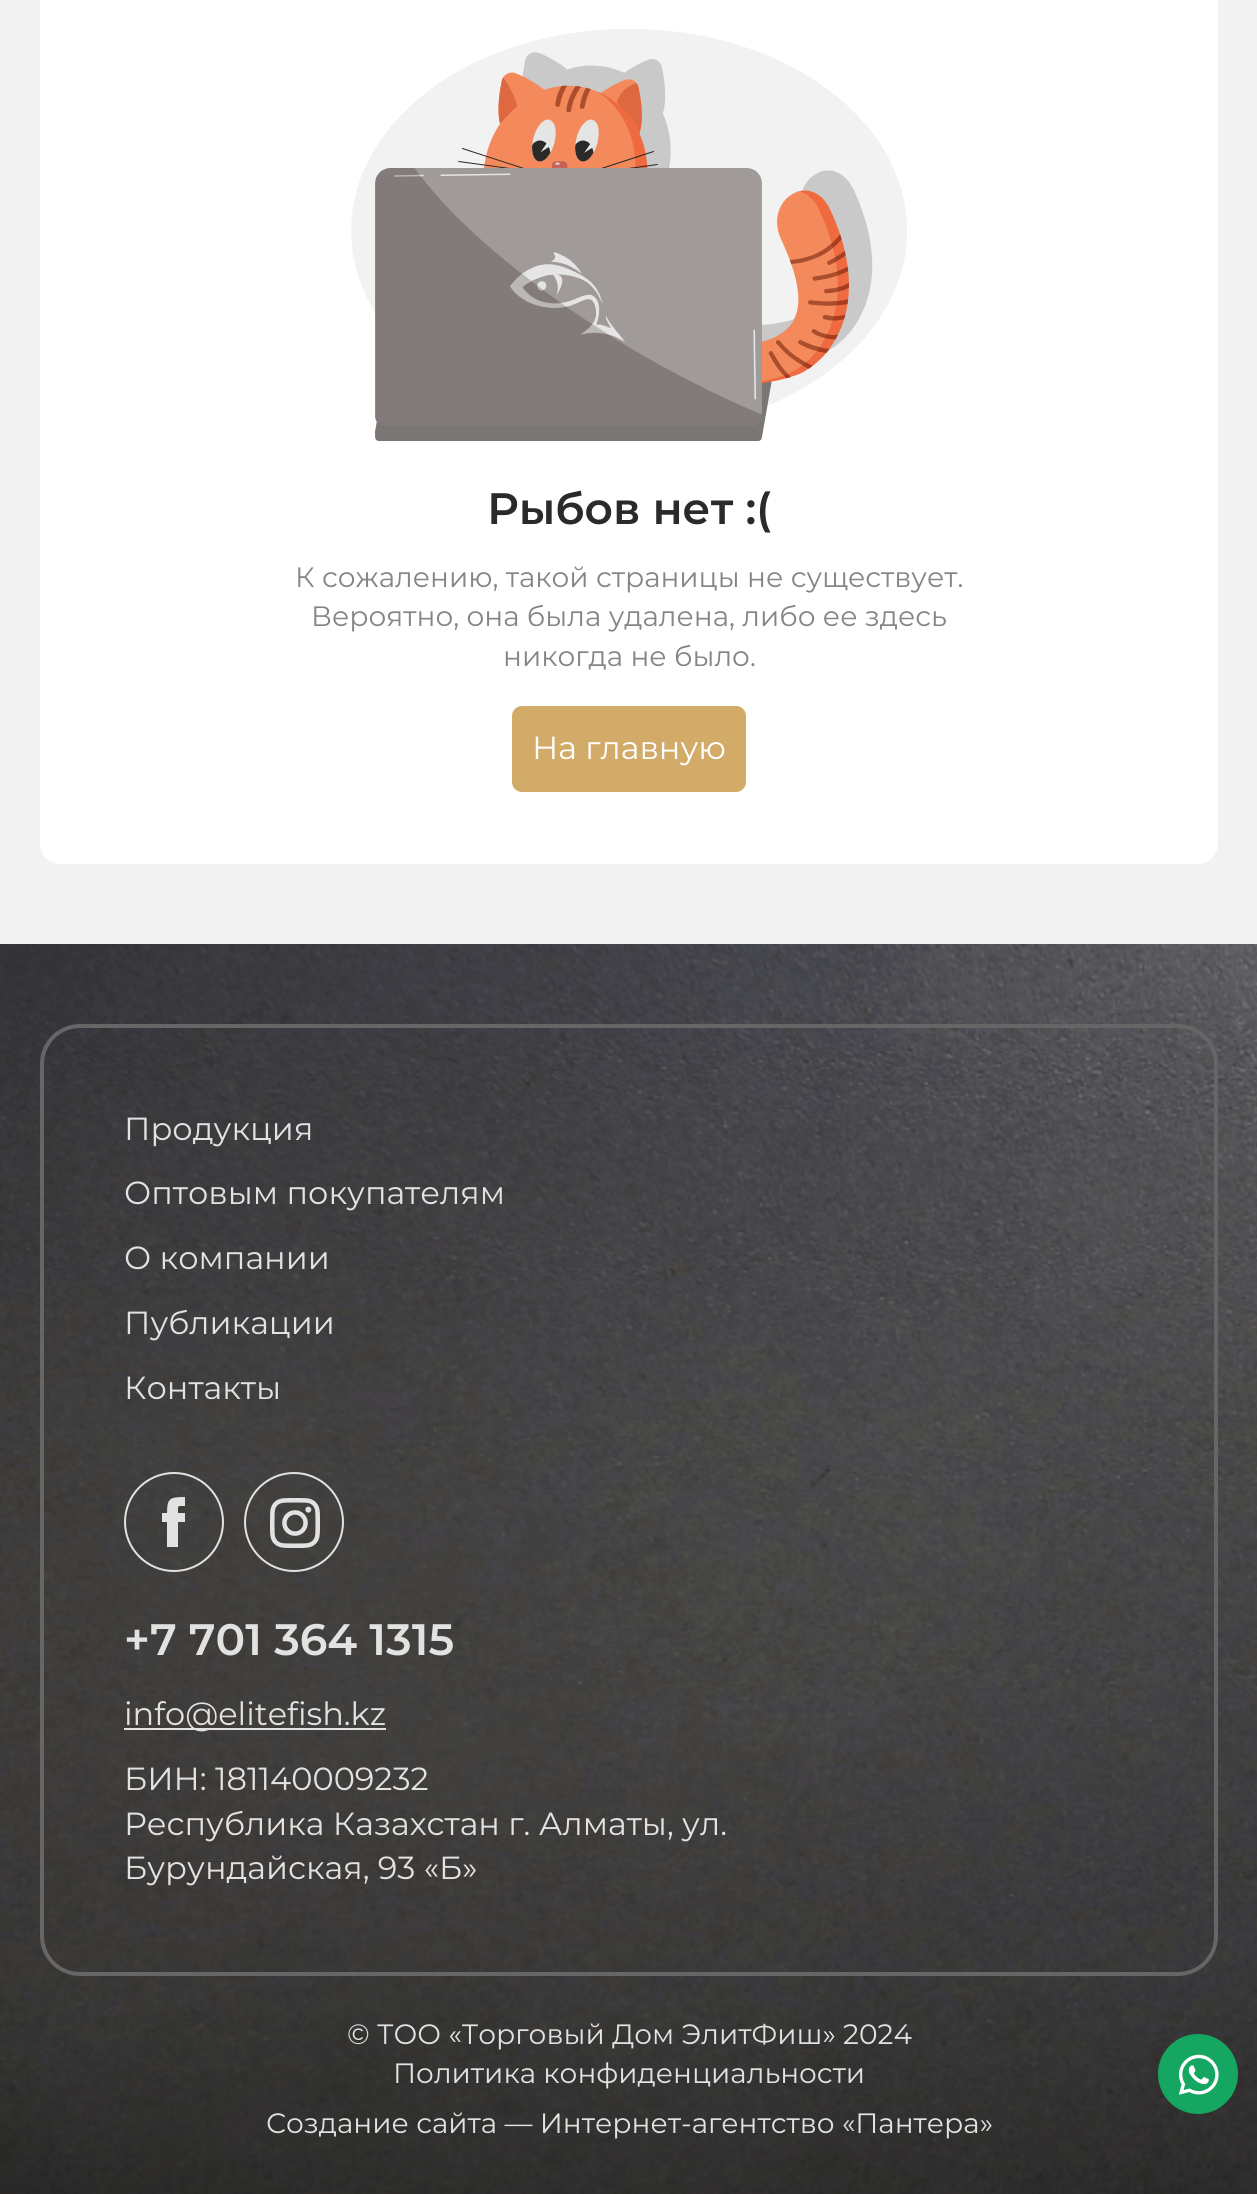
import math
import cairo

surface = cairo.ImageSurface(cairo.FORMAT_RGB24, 1257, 2194)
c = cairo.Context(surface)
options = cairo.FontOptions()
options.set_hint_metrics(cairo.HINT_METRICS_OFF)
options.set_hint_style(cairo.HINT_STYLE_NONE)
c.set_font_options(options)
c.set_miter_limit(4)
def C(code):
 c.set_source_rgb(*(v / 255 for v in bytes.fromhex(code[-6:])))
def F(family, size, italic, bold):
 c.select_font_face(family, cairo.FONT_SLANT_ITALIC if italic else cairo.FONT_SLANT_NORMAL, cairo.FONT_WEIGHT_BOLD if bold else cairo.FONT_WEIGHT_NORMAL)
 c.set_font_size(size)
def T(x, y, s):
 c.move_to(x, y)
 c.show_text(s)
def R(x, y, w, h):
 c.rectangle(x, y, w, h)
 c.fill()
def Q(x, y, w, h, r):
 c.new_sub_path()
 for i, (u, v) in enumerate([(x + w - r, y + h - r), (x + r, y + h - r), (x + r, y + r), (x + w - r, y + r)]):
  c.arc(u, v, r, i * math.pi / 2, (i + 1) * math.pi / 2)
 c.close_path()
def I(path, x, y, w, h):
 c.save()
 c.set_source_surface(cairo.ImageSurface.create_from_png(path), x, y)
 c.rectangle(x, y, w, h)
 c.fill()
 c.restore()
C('f2f2f2')
c.paint()
C('ffffff')
Q(40,-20,1178,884,20)
c.fill()
I('1.png',351,29,556,412)
F('Montserrat SemiBold',44,0,0)
C('2c2929')
T(487,524,'Рыбов нет :(')
F('Montserrat',28,0,0)
C('888483')
T(295,587,'К сожалению, такой страницы не существует.')
T(311,626,'Вероятно, она была удалена, либо ее здесь')
T(503,666,'никогда не было.')
C('d2ab68')
Q(512,706,234,86,10)
c.fill()
F('Montserrat',32,0,0)
C('ffffff')
T(532,759,'На главную')
I('2.png',0,944,1257,1250)
Q(42,1026,1174,948,38)
C('666666')
c.set_line_width(4)
c.stroke()
C('e2e2e2')
T(124,1140,'Продукция')
T(124,1204,'Оптовым покупателям')
T(124,1269,'О компании')
T(124,1334,'Публикации')
T(124,1399,'Контакты')
c.new_path()
c.arc(174,1522,49,0,2 * math.pi)
c.set_line_width(2)
c.stroke()
c.new_path()
c.move_to(185,1513)
c.line_to(178,1513)
c.curve_to(178,1505,177,1506,185,1506)
c.line_to(185,1497)
c.curve_to(170,1497,167,1498,167,1513)
c.line_to(162,1513)
c.line_to(162,1522)
c.line_to(167,1522)
c.line_to(167,1547)
c.line_to(178,1547)
c.line_to(178,1522)
c.line_to(185,1522)
c.close_path()
c.fill()
I('3.png',244,1472,100,100)
F('Montserrat SemiBold',44,0,0)
T(124,1655,'+7 701 364 1315')
R(124,1728,262,2)
F('Montserrat',32,0,0)
T(124,1725,'info@elitefish.kz')
T(124,1790,'БИН: 181140009232')
T(124,1835,'Республика Казахстан г. Алматы, ул.')
T(124,1879,'Бурундайская, 93 «Б»')
F('Montserrat',28,0,0)
T(347,2044,'© ТОО «Торговый Дом ЭлитФиш» 2024')
T(393,2083,'Политика конфиденциальности')
T(266,2133,'Создание сайта — Интернет-агентство «Пантера»')
I('4.png',1158,2034,80,80)
surface.write_to_png('o.png')
